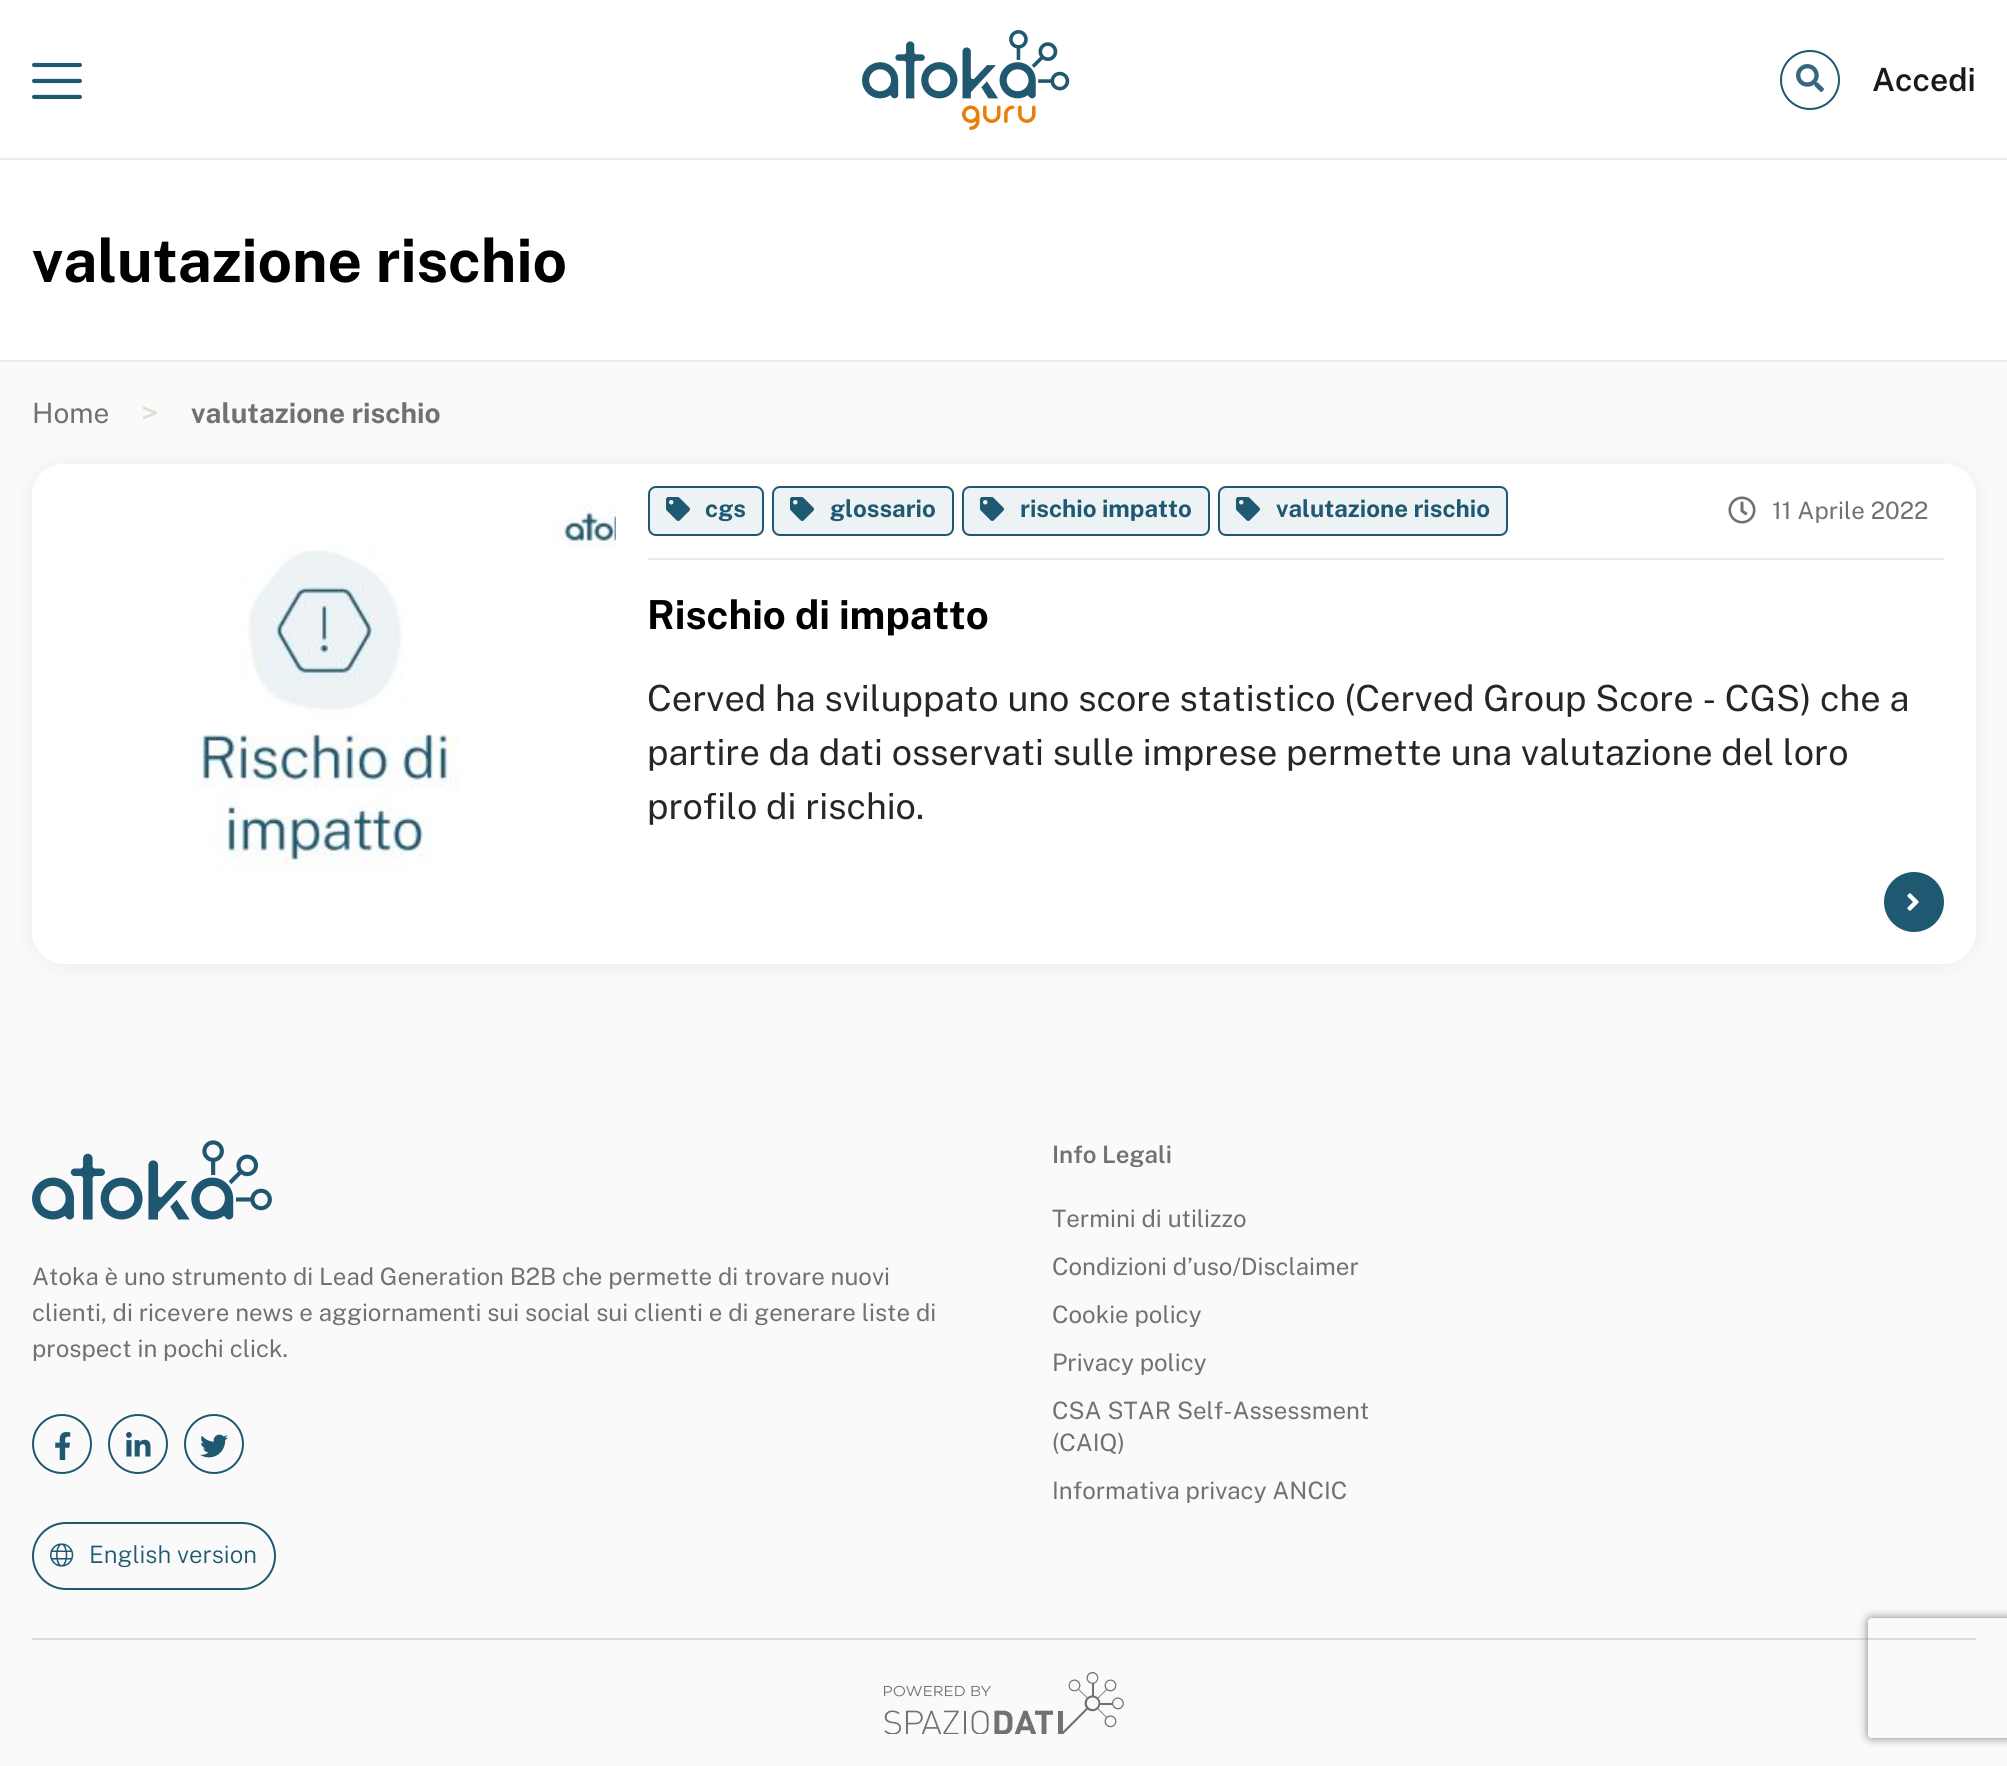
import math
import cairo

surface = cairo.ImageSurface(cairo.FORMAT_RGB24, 2007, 1766)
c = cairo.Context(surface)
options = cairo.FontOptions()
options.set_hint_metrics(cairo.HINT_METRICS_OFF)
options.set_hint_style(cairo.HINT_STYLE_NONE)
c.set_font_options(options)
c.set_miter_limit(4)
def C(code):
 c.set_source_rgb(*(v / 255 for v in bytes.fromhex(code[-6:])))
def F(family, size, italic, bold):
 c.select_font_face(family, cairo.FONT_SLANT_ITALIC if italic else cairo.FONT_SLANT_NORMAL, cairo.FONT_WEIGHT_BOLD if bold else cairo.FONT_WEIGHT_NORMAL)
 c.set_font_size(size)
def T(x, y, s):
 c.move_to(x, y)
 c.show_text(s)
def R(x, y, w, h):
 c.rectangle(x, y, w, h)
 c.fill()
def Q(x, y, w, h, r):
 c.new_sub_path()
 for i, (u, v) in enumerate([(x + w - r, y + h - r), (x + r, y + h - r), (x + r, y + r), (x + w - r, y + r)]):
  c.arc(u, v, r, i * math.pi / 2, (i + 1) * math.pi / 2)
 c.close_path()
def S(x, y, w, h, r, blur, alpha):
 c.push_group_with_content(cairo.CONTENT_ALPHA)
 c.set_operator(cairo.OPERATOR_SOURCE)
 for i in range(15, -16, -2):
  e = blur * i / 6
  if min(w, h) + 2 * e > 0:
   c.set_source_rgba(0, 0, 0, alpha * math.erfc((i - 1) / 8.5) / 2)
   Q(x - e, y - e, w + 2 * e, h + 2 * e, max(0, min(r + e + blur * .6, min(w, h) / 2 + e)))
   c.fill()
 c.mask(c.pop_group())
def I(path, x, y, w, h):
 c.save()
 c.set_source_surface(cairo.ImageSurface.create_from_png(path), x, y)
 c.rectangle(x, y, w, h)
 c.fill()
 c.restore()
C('fafafa')
c.paint()
C('ffffff')
R(0,0,2007,158)
C('ebebeb')
R(0,158,2007,2)
I('1.png',32,62,50,37)
I('2.png',862,30,208,100)
c.arc(1810,80,29,0,2 * math.pi)
C('1f5871')
c.stroke()
I('3.png',1796,64,28,28)
F('Public Sans SemiBold',32,0,0)
C('1a1a1a')
T(1872,91,'Accedi')
C('ffffff')
R(0,160,2007,200)
C('ebebeb')
R(0,360,2007,2)
F('Public Sans',60,0,1)
C('000000')
T(32,282,'valutazione rischio')
F('Public Sans',28,0,0)
C('717171')
T(32,423,'Home')
F('Public Sans',32,0,0)
C('dfdcd2')
T(141,424,'>')
F('Public Sans',28,0,1)
C('717171')
T(191,423,'valutazione rischio')
C('828282')
S(34,468,1940,496,30,11,.15)
C('ffffff')
Q(32,464,1944,500,32)
c.fill()
I('4.png',191,504,425,367)
C('eceae4')
R(648,558,1296,2)
C('edf2f4')
Q(649,487,114,48,7)
c.fill_preserve()
C('1f5871')
c.stroke()
I('5.png',666,497,24,24)
F('Public Sans',24,0,1)
T(705,517,'cgs')
C('edf2f4')
Q(773,487,180,48,7)
c.fill_preserve()
C('1f5871')
c.stroke()
I('5.png',790,497,24,24)
T(830,517,'glossario')
C('edf2f4')
Q(963,487,246,48,7)
c.fill_preserve()
C('1f5871')
c.stroke()
I('5.png',980,497,24,24)
T(1020,517,'rischio impatto')
C('edf2f4')
Q(1219,487,288,48,7)
c.fill_preserve()
C('1f5871')
c.stroke()
I('5.png',1236,497,24,24)
T(1276,517,'valutazione rischio')
I('6.png',1728,496,28,28)
F('Public Sans',24,0,0)
C('717171')
T(1772,519,'11 Aprile 2022')
F('Public Sans',40,0,1)
C('000000')
T(647,629,'Rischio di impatto')
F('Public Sans',36,0,0)
C('262626')
T(647,711,'Cerved ha sviluppato uno score statistico (Cerved Group Score - CGS) che a')
T(647,765,'partire da dati osservati sulle imprese permette una valutazione del loro')
T(647,819,'profilo di rischio.')
C('1f5871')
c.new_path()
c.arc(1914,902,30,0,2 * math.pi)
c.fill()
I('7.png',1907,893,12,18)
I('8.png',32,1140,240,80)
F('Public Sans',24,0,0)
C('717171')
T(32,1285,'Atoka è uno strumento di Lead Generation B2B che permette di trovare nuovi')
T(32,1321,'clienti, di ricevere news e aggiornamenti sui social sui clienti e di generare liste di')
T(32,1357,'prospect in pochi click.')
c.new_path()
c.arc(62,1444,29,0,2 * math.pi)
C('1f5871')
c.stroke()
I('9.png',55,1432,16,28)
c.arc(138,1444,29,0,2 * math.pi)
c.stroke()
I('10.png',126,1432,25,25)
c.arc(214,1444,29,0,2 * math.pi)
c.stroke()
I('11.png',200,1434,28,24)
Q(33,1523,242,66,33)
c.stroke()
I('12.png',50,1543,24,24)
F('Public Sans Light',24,0,0)
T(89,1563,'English version')
F('Public Sans SemiBold',24,0,0)
C('717171')
T(1052,1163,'Info Legali')
F('Public Sans',24,0,0)
T(1052,1227,'Termini di utilizzo')
T(1052,1275,'Condizioni d’uso/Disclaimer')
T(1052,1323,'Cookie policy')
T(1052,1371,'Privacy policy')
T(1052,1419,'CSA STAR Self-Assessment')
T(1052,1451,'(CAIQ)')
T(1052,1499,'Informativa privacy ANCIC')
C('dfdcd2')
R(32,1638,1944,2)
I('13.png',884,1672,240,62)
c.save()
c.set_fill_rule(cairo.FILL_RULE_EVEN_ODD)
c.new_path()
c.move_to(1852,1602)
c.line_to(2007,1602)
c.line_to(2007,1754)
c.line_to(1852,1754)
c.close_path()
c.move_to(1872,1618)
c.line_to(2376,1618)
c.curve_to(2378,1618,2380,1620,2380,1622)
c.line_to(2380,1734)
c.curve_to(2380,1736,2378,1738,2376,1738)
c.line_to(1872,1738)
c.curve_to(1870,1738,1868,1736,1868,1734)
c.line_to(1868,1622)
c.curve_to(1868,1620,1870,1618,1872,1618)
c.close_path()
c.clip()
C('808080')
S(1868,1618,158,120,4,5,1)
c.restore()
surface.write_to_png('o.png')
